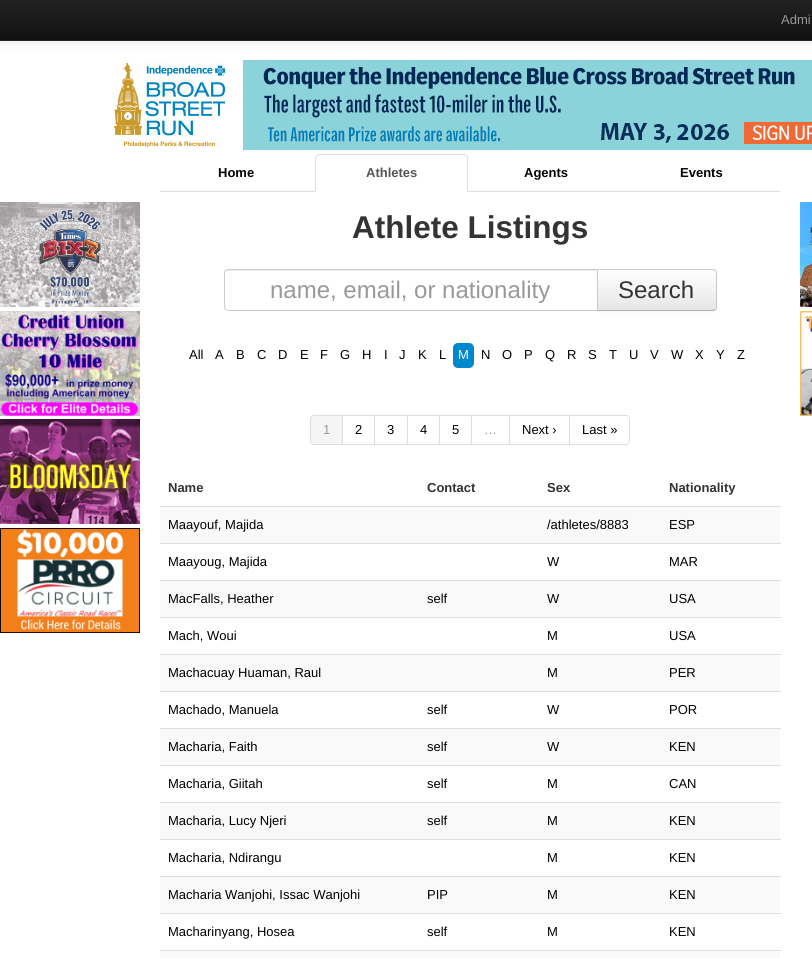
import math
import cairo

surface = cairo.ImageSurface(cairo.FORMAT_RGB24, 812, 958)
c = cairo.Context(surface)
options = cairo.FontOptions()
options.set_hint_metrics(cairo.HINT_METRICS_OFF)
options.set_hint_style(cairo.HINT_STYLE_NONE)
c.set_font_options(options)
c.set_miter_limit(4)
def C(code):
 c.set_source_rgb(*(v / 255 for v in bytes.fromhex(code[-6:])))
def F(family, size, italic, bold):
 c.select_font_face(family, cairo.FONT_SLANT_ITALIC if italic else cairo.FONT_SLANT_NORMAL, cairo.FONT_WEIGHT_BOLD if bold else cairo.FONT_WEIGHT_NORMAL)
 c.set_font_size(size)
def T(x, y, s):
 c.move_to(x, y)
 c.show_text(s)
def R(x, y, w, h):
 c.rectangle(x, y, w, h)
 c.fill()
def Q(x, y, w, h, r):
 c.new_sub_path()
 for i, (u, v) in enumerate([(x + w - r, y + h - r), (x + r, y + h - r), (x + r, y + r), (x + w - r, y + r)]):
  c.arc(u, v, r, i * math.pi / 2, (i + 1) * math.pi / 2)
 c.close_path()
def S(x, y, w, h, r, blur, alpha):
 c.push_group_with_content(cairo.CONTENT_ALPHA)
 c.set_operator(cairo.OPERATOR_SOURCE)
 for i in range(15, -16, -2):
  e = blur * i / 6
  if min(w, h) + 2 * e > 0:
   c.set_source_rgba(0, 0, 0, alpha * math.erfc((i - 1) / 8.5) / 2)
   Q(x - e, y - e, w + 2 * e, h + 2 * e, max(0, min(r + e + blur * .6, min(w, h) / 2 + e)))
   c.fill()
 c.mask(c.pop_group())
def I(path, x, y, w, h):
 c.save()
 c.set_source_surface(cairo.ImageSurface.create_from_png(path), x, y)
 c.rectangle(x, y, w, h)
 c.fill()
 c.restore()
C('ffffff')
c.paint()
C('000000')
S(0,1,812,41,0,5,.1)
gradient = cairo.LinearGradient(406,0,406,40)
gradient.add_color_stop_rgba(0,0.133,0.133,0.133,1)
gradient.add_color_stop_rgba(1,0.067,0.067,0.067,1)
c.set_source(gradient)
R(0,0,812,40)
C('252525')
R(0,40,812,1)
F('Liberation Sans',13,0,0)
C('999999')
T(781,24,'Admi')
I('1.png',114,60,698,90)
I('2.png',0,202,140,105)
I('3.png',0,311,140,105)
I('4.png',0,419,140,105)
I('5.png',0,528,140,105)
C('dddddd')
R(160,191,620,1)
F('Liberation Sans',13,0,1)
C('000000')
T(218,177,'Home')
C('ffffff')
c.new_path()
c.move_to(319,154)
c.line_to(464,154)
c.curve_to(466,154,468,156,468,158)
c.line_to(468,192)
c.line_to(315,192)
c.line_to(315,158)
c.curve_to(315,156,317,154,319,154)
c.close_path()
c.fill()
C('dddddd')
c.new_path()
c.move_to(319,154)
c.line_to(316,155)
c.line_to(317,156)
c.line_to(319,155)
c.line_to(464,155)
c.line_to(466,156)
c.line_to(467,155)
c.line_to(464,154)
c.close_path()
c.fill()
c.new_path()
c.move_to(468,192)
c.line_to(468,158)
c.curve_to(468,157,467.5,156,467,155)
c.line_to(466,156)
c.curve_to(467,156,467,157,467,158)
c.line_to(467,191)
c.close_path()
c.fill()
c.new_path()
c.move_to(315,192)
c.line_to(316,191)
c.line_to(316,158)
c.curve_to(316,157,316,156,317,156)
c.line_to(316,155)
c.curve_to(315.5,156,315,157,315,158)
c.close_path()
c.fill()
C('555555')
T(366,177,'Athletes')
C('000000')
T(524,177,'Agents')
T(680,177,'Events')
F('Liberation Sans',31.5,0,1)
C('333333')
T(352,238,'Athlete Listings')
C('ececec')
c.new_path()
c.move_to(228,271)
c.line_to(597,271)
c.line_to(597,270)
c.line_to(228,270)
c.curve_to(226,270,225,271,225,273)
c.line_to(225,274)
c.curve_to(225,272,226,271,228,271)
c.close_path()
c.fill()
c.new_path()
c.move_to(228,269.5)
c.line_to(597.5,269.5)
c.line_to(597.5,310.5)
c.line_to(228,310.5)
c.curve_to(226,310.5,224.5,309,224.5,307)
c.line_to(224.5,273)
c.curve_to(224.5,271,226,269.5,228,269.5)
c.close_path()
C('cccccc')
c.set_line_width(1)
c.stroke()
F('Liberation Sans',24,0,0)
C('999999')
T(270,298,'name, email, or nationality')
C('000000')
S(597,270,120,42,4,1,.05)
C('f5f5f5')
c.new_path()
c.move_to(597,269)
c.line_to(713,269)
c.curve_to(715,269,717,271,717,273)
c.line_to(717,307)
c.curve_to(717,309,715,311,713,311)
c.line_to(597,311)
c.close_path()
c.fill()
c.save()
c.new_path()
c.move_to(597,269)
c.line_to(713,269)
c.curve_to(715,269,717,271,717,273)
c.line_to(717,307)
c.curve_to(717,309,715,311,713,311)
c.line_to(597,311)
c.close_path()
c.clip()
gradient = cairo.LinearGradient(657,270,657,310)
gradient.add_color_stop_rgba(0,1,1,1,1)
gradient.add_color_stop_rgba(1,0.902,0.902,0.902,1)
c.set_source(gradient)
R(598,270,119,40)
c.restore()
C('cccccc')
c.new_path()
c.move_to(597,269)
c.line_to(598,270)
c.line_to(713,270)
c.line_to(715,271)
c.line_to(716,270)
c.line_to(713,269)
c.close_path()
c.fill()
c.new_path()
c.move_to(717,307)
c.line_to(717,273)
c.curve_to(717,272,716.5,271,716,270)
c.line_to(715,271)
c.curve_to(716,271,716,272,716,273)
c.line_to(716,307)
c.curve_to(716,308,716,309,715,309)
c.line_to(716,310)
c.curve_to(716.5,309,717,308,717,307)
c.close_path()
c.fill()
C('b3b3b3')
c.new_path()
c.move_to(713,311)
c.line_to(716,310)
c.line_to(715,309)
c.line_to(713,310)
c.line_to(598,310)
c.line_to(597,311)
c.close_path()
c.fill()
C('cccccc')
c.new_path()
c.move_to(597,269)
c.line_to(597,311)
c.line_to(598,310)
c.line_to(598,270)
c.close_path()
c.fill()
C('333333')
T(618,298,'Search')
F('Liberation Sans',13,0,0)
C('000000')
T(189,359,'All')
T(215,359,'A')
T(236,359,'B')
T(257,359,'C')
T(278,359,'D')
T(300,359,'E')
T(320,359,'F')
T(340,359,'G')
T(362,359,'H')
T(384,359,'I')
T(399,359,'J')
T(418,359,'K')
T(439,359,'L')
C('0088cc')
Q(453,343,21,25,5)
c.fill()
C('ffffff')
T(458,359,'M')
C('000000')
T(481,359,'N')
T(502,359,'O')
T(524,359,'P')
T(545,359,'Q')
T(567,359,'R')
T(588,359,'S')
T(609,359,'T')
T(629,359,'U')
T(650,359,'V')
T(671,359,'W')
T(695,359,'X')
T(716,359,'Y')
T(737,359,'Z')
C('f5f5f5')
c.new_path()
c.move_to(314,415.5)
c.line_to(342.5,415.5)
c.line_to(342.5,444.5)
c.line_to(314,444.5)
c.curve_to(312,444.5,310.5,443,310.5,441)
c.line_to(310.5,419)
c.curve_to(310.5,417,312,415.5,314,415.5)
c.close_path()
c.fill_preserve()
C('dddddd')
c.stroke()
C('999999')
T(323,434,'1')
C('dddddd')
R(343,415,227,1)
R(374,415,1,30)
R(343,444,32,1)
C('000000')
T(355,434,'2')
C('dddddd')
R(407,415,1,30)
R(375,444,33,1)
C('000000')
T(387,434,'3')
C('dddddd')
R(439,415,1,30)
R(408,444,32,1)
C('000000')
T(420,434,'4')
C('dddddd')
R(471,415,1,30)
R(440,444,32,1)
C('000000')
T(452,434,'5')
C('dddddd')
R(509,415,1,30)
R(472,444,38,1)
C('999999')
T(484,434,'…')
C('dddddd')
R(569,415,1,30)
R(510,444,60,1)
C('000000')
T(522,434,'Next ›')
C('dddddd')
c.set_fill_rule(cairo.FILL_RULE_EVEN_ODD)
c.new_path()
c.move_to(570,415)
c.line_to(626,415)
c.curve_to(628,415,630,417,630,419)
c.line_to(630,441)
c.curve_to(630,443,628,445,626,445)
c.line_to(570,445)
c.close_path()
c.move_to(570,416)
c.line_to(626,416)
c.curve_to(628,416,629,417,629,419)
c.line_to(629,441)
c.curve_to(629,443,628,444,626,444)
c.line_to(570,444)
c.close_path()
c.fill()
C('000000')
T(582,434,'Last »')
F('Liberation Sans',13,0,1)
C('333333')
T(168,492,'Name')
T(427,492,'Contact')
T(547,492,'Sex')
T(669,492,'Nationality')
C('f9f9f9')
R(160,507,620,36)
F('Liberation Sans',13,0,0)
C('000000')
T(168,529,'Maayouf, Majida')
T(547,529,'/athletes/8883')
C('dddddd')
R(160,506,621,1)
C('000000')
T(669,529,'ESP')
T(168,566,'Maayoug, Majida')
T(547,566,'W')
C('dddddd')
R(160,543,621,1)
C('000000')
T(669,566,'MAR')
C('f9f9f9')
R(160,581,620,36)
C('000000')
T(168,603,'MacFalls, Heather')
T(427,603,'self')
T(547,603,'W')
C('dddddd')
R(160,580,621,1)
C('000000')
T(669,603,'USA')
T(168,640,'Mach, Woui')
T(547,640,'M')
C('dddddd')
R(160,617,621,1)
C('000000')
T(669,640,'USA')
C('f9f9f9')
R(160,655,620,36)
C('000000')
T(168,677,'Machacuay Huaman, Raul')
T(547,677,'M')
C('dddddd')
R(160,654,621,1)
C('000000')
T(669,677,'PER')
T(168,714,'Machado, Manuela')
T(427,714,'self')
T(547,714,'W')
C('dddddd')
R(160,691,621,1)
C('000000')
T(669,714,'POR')
C('f9f9f9')
R(160,729,620,36)
C('000000')
T(168,751,'Macharia, Faith')
T(427,751,'self')
T(547,751,'W')
C('dddddd')
R(160,728,621,1)
C('000000')
T(669,751,'KEN')
T(168,788,'Macharia, Giitah')
T(427,788,'self')
T(547,788,'M')
C('dddddd')
R(160,765,621,1)
C('000000')
T(669,788,'CAN')
C('f9f9f9')
R(160,803,620,36)
C('000000')
T(168,825,'Macharia, Lucy Njeri')
T(427,825,'self')
T(547,825,'M')
C('dddddd')
R(160,802,621,1)
C('000000')
T(669,825,'KEN')
T(168,862,'Macharia, Ndirangu')
T(547,862,'M')
C('dddddd')
R(160,839,621,1)
C('000000')
T(669,862,'KEN')
C('f9f9f9')
R(160,877,620,36)
C('000000')
T(168,899,'Macharia Wanjohi, Issac Wanjohi')
T(427,899,'PIP')
T(547,899,'M')
C('dddddd')
R(160,876,621,1)
C('000000')
T(669,899,'KEN')
T(168,936,'Macharinyang, Hosea')
T(427,936,'self')
T(547,936,'M')
C('dddddd')
R(160,913,621,1)
C('000000')
T(669,936,'KEN')
C('dddddd')
R(160,950,621,1)
C('f9f9f9')
R(160,951,620,7)
I('6.png',800,202,12,105)
I('7.png',800,311,12,105)
surface.write_to_png('o.png')
